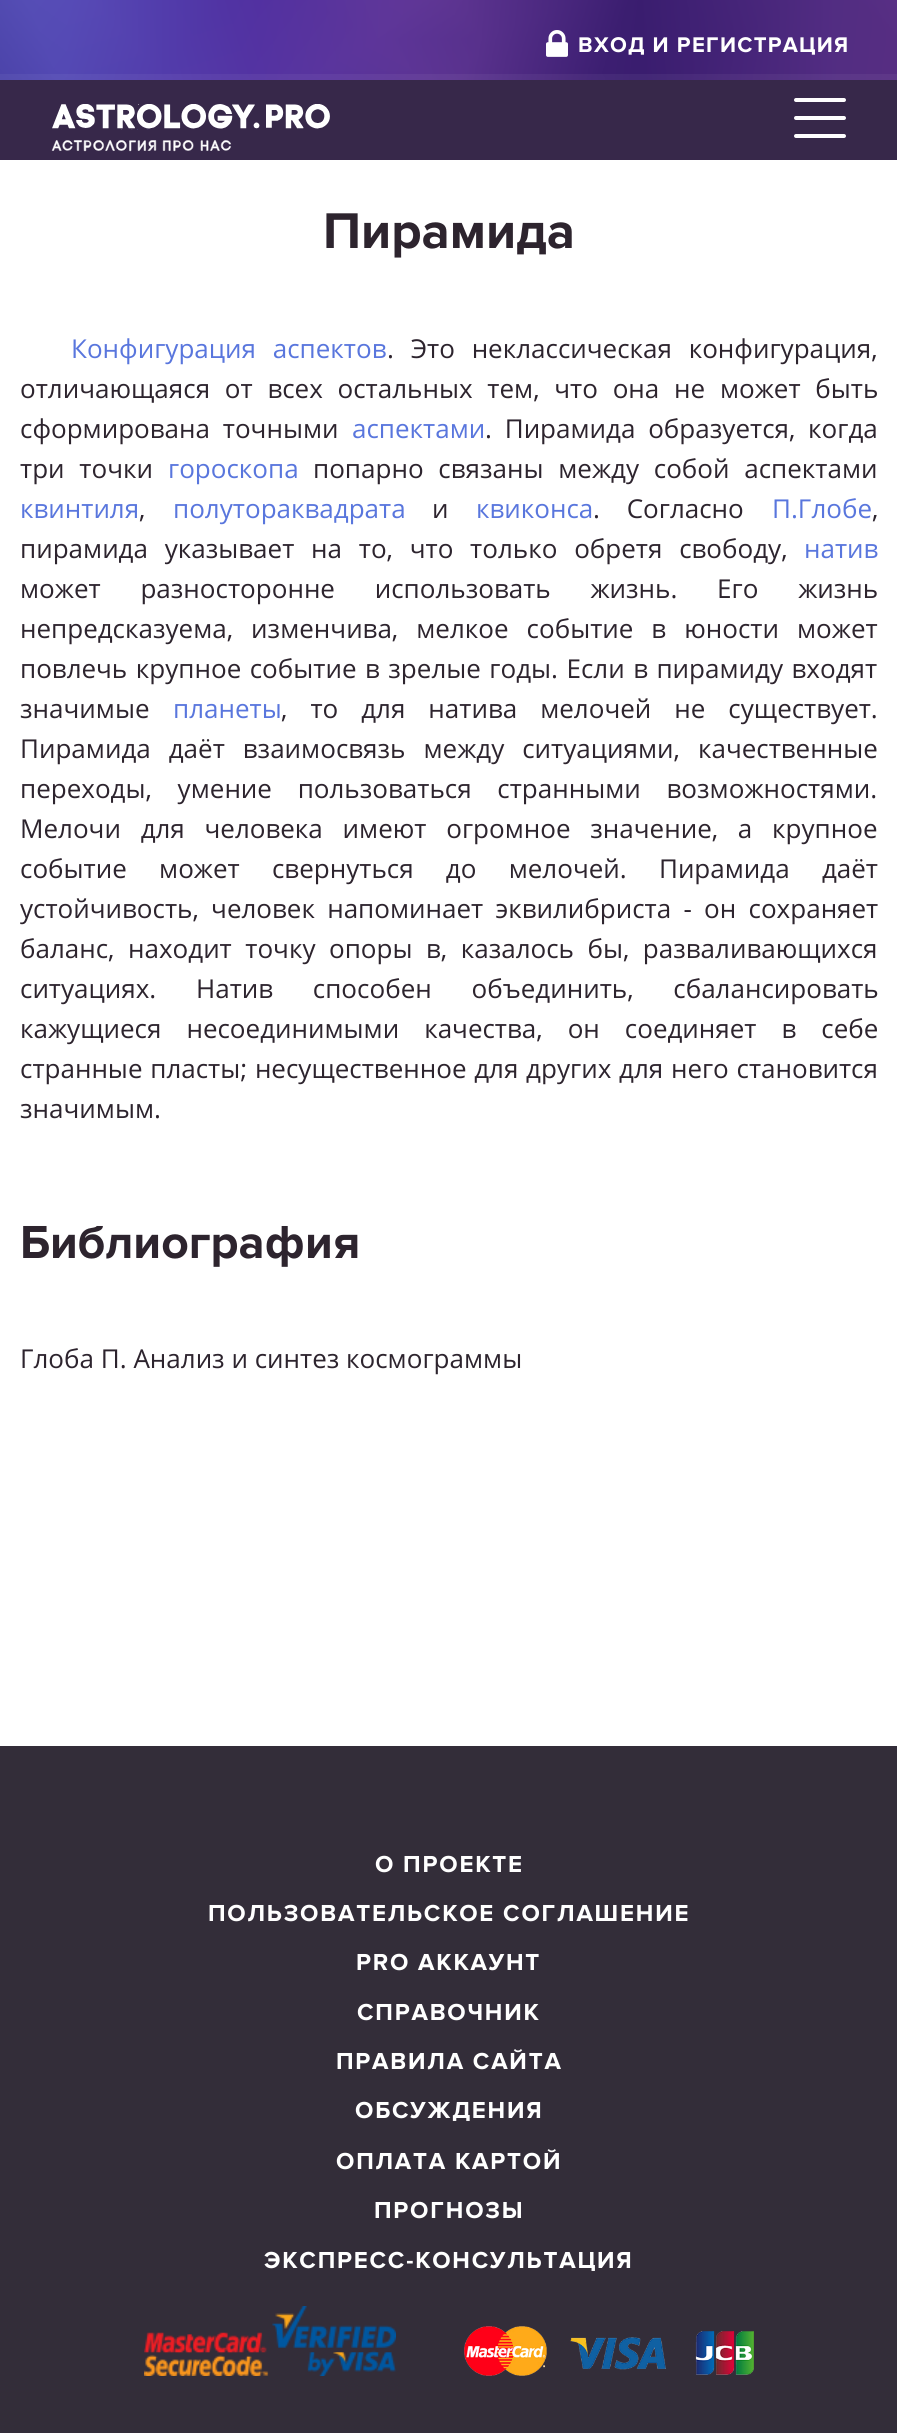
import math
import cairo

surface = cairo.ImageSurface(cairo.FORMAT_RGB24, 897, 2433)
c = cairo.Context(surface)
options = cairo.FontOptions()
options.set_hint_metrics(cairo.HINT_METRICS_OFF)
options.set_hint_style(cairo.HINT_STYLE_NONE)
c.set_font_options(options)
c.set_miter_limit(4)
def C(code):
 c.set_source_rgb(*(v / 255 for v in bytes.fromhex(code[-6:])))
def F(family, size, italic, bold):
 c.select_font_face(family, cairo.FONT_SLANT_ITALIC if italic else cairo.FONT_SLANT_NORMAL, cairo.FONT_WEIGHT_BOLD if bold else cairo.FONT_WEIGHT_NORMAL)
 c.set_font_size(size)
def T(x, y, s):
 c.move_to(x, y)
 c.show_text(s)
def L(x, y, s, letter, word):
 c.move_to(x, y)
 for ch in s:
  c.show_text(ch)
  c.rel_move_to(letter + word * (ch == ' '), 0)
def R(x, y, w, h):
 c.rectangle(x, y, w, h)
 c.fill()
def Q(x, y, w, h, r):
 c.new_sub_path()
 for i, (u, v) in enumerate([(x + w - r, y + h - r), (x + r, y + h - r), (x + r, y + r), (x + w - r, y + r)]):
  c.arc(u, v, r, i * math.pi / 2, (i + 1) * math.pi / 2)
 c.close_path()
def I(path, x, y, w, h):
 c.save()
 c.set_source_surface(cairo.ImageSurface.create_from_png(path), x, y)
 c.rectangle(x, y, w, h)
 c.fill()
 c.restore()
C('ffffff')
c.paint()
I('1.png',0,0,897,80)
I('2.png',546,30,22,27)
F('Proxima Nova',22,0,1)
C('ffffff')
L(578,52,'ВХОД И РЕГИСТРАЦИЯ',1.3,0)
C('37284a')
R(0,80,897,80)
I('3.png',52,104,278,26)
I('4.png',51,140,181,12)
c.set_source_rgba(1,1,1,0.05)
R(0,74,897,6)
C('ffffff')
Q(794,98,52,4,2)
c.fill()
Q(794,116,52,4,2)
c.fill()
Q(794,134,52,4,2)
c.fill()
F('Proxima Nova',52,0,1)
C('2d242e')
T(323,248,'Пирамида')
F('Open Sans',26,0,0)
C('5976dd')
L(71,358,'Конфигурация аспектов',0,10)
C('2d242e')
L(387,358,'. Это неклассическая конфигурация,',0,10)
L(20,398,'отличающаяся от всех остальных тем, что она не может быть',0,8)
L(20,438,'сформирована точными',0,6)
C('5976dd')
T(352,438,'аспектами')
C('2d242e')
L(485,438,'. Пирамида образуется, когда',0,6)
L(20,478,'три точки',0,8)
C('5976dd')
T(168,478,'гороскопа')
C('2d242e')
L(313,478,'попарно связаны между собой аспектами',0,8)
C('5976dd')
T(20,518,'квинтиля')
C('2d242e')
T(139,518,',')
C('5976dd')
T(173,518,'полутораквадрата')
C('2d242e')
T(432,518,'и')
C('5976dd')
T(476,518,'квиконса')
C('2d242e')
L(593,518,'. Согласно',0,20)
C('5976dd')
T(772,518,'П.Глобе')
C('2d242e')
T(872,518,',')
L(20,558,'пирамида указывает на то, что только обретя свободу,',0,10)
C('5976dd')
T(804,558,'натив')
C('2d242e')
L(20,598,'может разносторонне использовать жизнь. Его жизнь',0,33)
L(20,638,'непредсказуема, изменчива, мелкое событие в юности может',0,11.25)
L(20,678,'повлечь крупное событие в зрелые годы. Если в пирамиду входят',0,1.75)
T(20,718,'значимые')
C('5976dd')
T(173,718,'планеты')
C('2d242e')
L(281,718,', то для натива мелочей не существует.',0,16.25)
L(20,758,'Пирамида даёт взаимосвязь между ситуациями, качественные',0,11.25)
L(20,798,'переходы, умение пользоваться странными возможностями.',0,19)
L(20,838,'Мелочи для человека имеют огромное значение, а крупное',0,13)
L(20,878,'событие может свернуться до мелочей. Пирамида даёт',0,25.5)
L(20,918,'устойчивость, человек напоминает эквилибриста - он сохраняет',0,5.5)
L(20,958,'баланс, находит точку опоры в, казалось бы, разваливающихся',0,6.75)
L(20,998,'ситуациях. Натив способен объединить, сбалансировать',0,33)
L(20,1038,'кажущиеся несоединимыми качества, он соединяет в себе',0,18.25)
L(20,1078,'странные пласты; несущественное для других для него становится',0,1)
T(20,1118,'значимым.')
F('Proxima Nova',48,0,1)
T(20,1258,'Библиография')
F('Open Sans',26,0,0)
T(20,1368,'Глоба П. Анализ и синтез космограммы')
C('332d39')
R(0,1746,897,687)
F('Proxima Nova',24,0,1)
C('ffffff')
L(375,1872,'О ПРОЕКТЕ',1.8,0)
L(208,1921,'ПОЛЬЗОВАТЕЛЬСКОЕ СОГЛАШЕНИЕ',1.8,0)
L(356,1970,'PRO АККАУНТ',1.8,0)
L(357,2020,'СПРАВОЧНИК',1.8,0)
L(336,2069,'ПРАВИЛА САЙТА',1.8,0)
L(355,2118,'ОБСУЖДЕНИЯ',1.8,0)
L(336,2169,'ОПЛАТА КАРТОЙ',1.8,0)
L(374,2218,'ПРОГНОЗЫ',1.8,0)
L(264,2268,'ЭКСПРЕСС-КОНСУЛЬТАЦИЯ',1.8,0)
I('5.png',144,2306,252,70)
I('6.png',464,2326,290,50)
surface.write_to_png('o.png')
